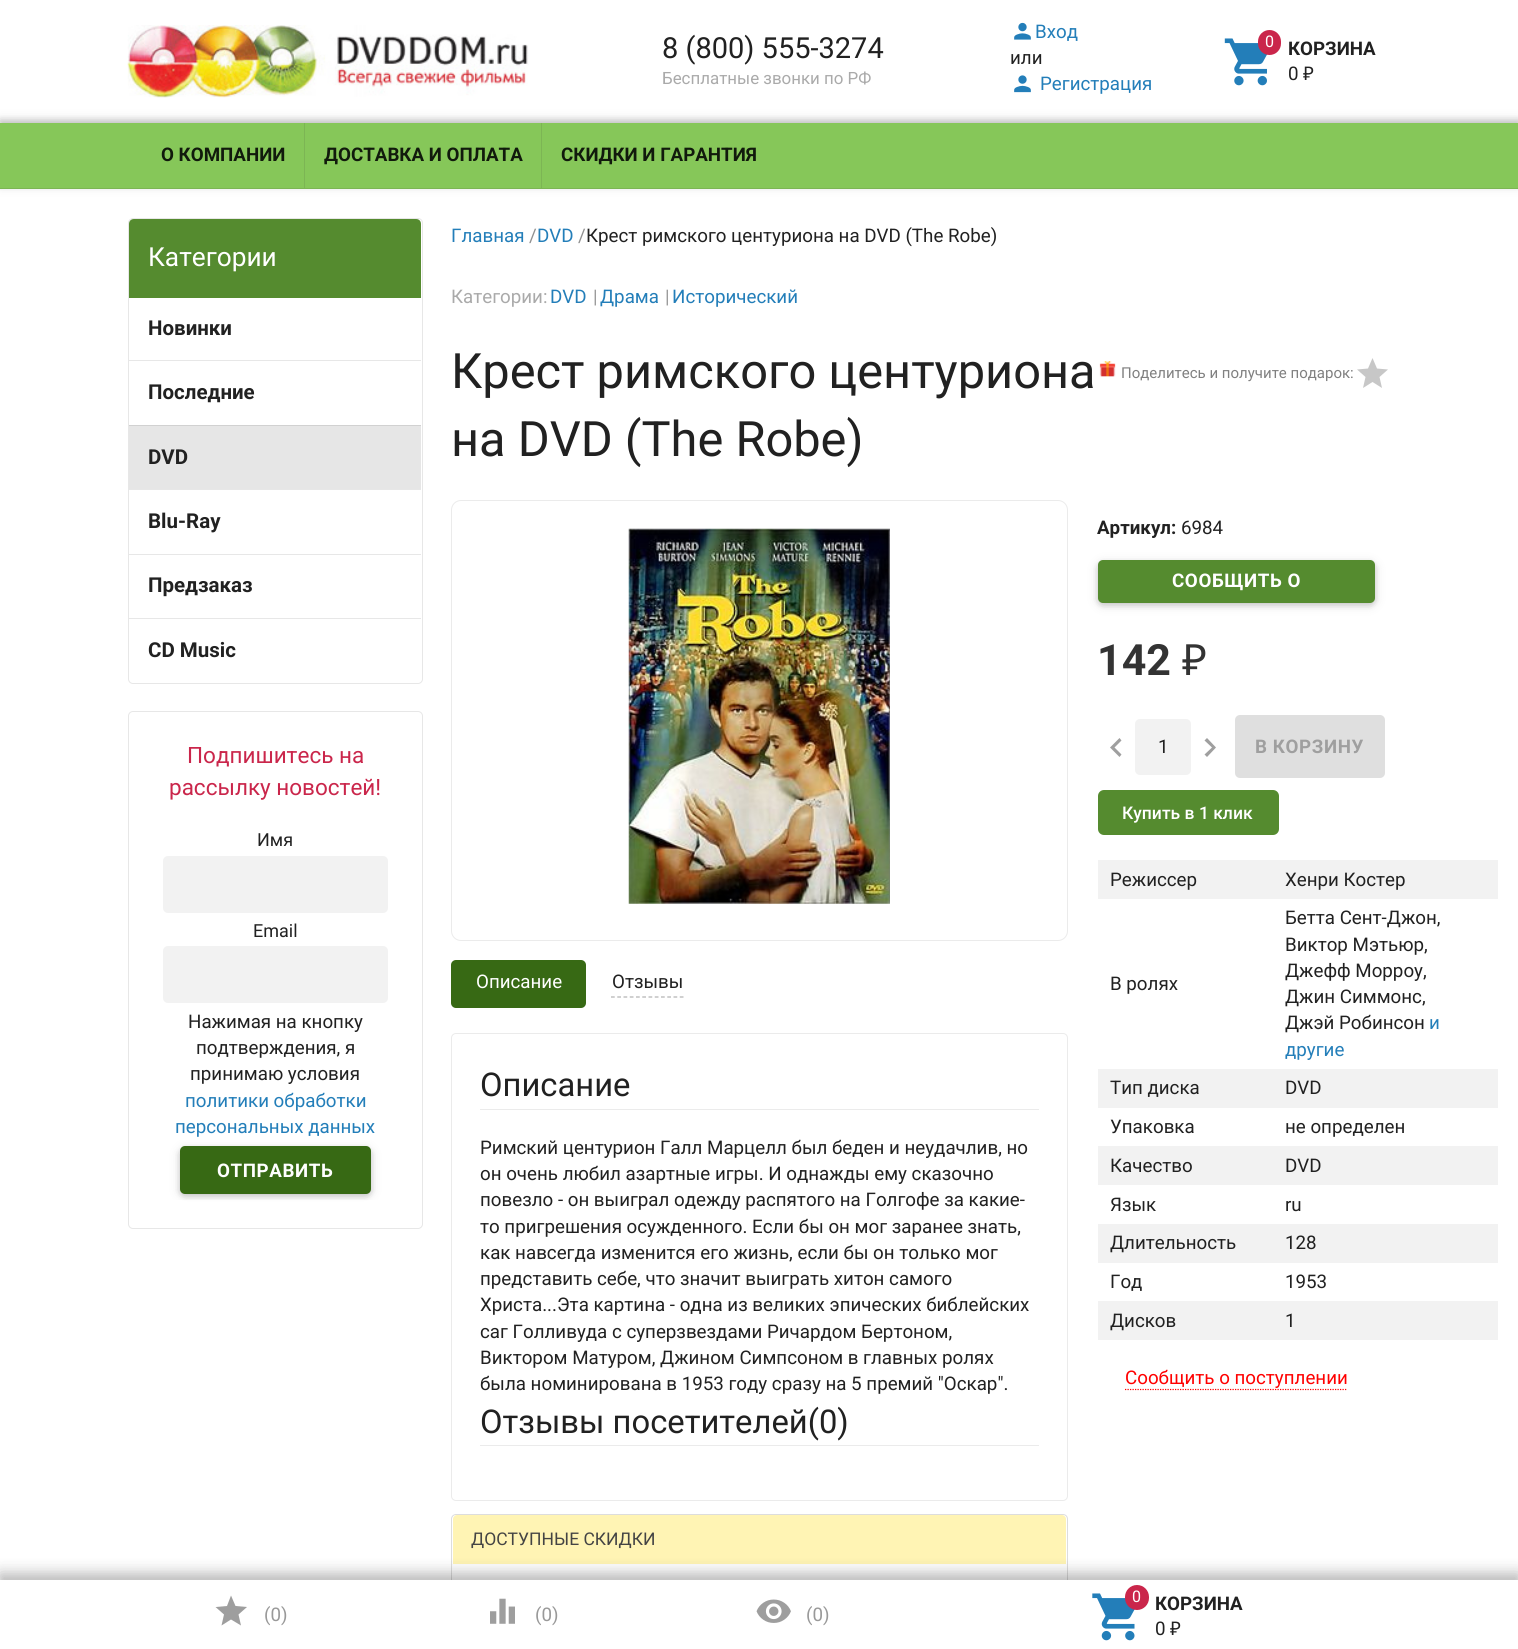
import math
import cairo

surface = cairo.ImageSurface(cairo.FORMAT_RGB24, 1518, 1649)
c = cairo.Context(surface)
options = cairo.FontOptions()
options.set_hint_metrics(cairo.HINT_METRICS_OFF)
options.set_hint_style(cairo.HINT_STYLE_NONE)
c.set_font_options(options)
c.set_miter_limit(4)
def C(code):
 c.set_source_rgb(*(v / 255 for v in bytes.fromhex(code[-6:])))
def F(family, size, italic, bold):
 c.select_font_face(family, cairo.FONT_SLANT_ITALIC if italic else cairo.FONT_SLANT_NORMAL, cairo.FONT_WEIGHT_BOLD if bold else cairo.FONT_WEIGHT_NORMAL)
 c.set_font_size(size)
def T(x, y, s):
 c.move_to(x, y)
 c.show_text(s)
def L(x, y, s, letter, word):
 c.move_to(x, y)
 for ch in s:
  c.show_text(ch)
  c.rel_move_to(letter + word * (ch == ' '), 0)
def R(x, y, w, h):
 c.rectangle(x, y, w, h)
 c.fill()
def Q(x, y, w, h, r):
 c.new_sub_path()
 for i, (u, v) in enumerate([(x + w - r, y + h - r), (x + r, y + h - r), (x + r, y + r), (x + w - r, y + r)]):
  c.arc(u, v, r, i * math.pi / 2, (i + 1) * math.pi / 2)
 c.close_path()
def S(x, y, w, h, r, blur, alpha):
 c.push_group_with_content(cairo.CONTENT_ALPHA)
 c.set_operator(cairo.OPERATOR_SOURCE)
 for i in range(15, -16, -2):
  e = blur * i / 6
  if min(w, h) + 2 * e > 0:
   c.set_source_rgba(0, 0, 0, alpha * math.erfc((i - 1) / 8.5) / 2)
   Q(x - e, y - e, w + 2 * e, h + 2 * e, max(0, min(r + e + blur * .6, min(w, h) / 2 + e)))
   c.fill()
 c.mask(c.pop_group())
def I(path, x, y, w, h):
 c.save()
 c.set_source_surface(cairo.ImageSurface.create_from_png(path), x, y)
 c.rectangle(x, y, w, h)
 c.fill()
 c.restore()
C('ffffff')
c.paint()
I('1.png',127,25,402,73)
F('Roboto',29,0,0)
C('212121')
T(662,58,'8 (800) 555-3274')
F('Roboto',16.9,0,0)
C('aaaaaa')
T(662,84,'Бесплатные звонки по РФ')
I('2.png',1014,22,17,18)
F('Roboto',18.75,0,0)
C('237eb9')
T(1035,38,'Вход')
C('212121')
T(1010,64,'или')
I('3.png',1014,75,17,18)
C('237eb9')
T(1040,90,'Регистрация')
I('4.png',1224,38,44,48)
C('ca264b')
Q(1258,30,23,25,11.5)
c.fill()
F('Roboto',16,0,0)
C('ffffff')
T(1265,47,'0')
F('Roboto',18.75,0,1)
C('212121')
T(1288,55,'КОРЗИНА')
F('Roboto',18.75,0,0)
T(1288,80,'0')
F('Noto Sans',18.75,0,0)
T(1303,80,'₽')
C('000000')
S(0,120,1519,66,0,6,.12)
S(0,120,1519,66,0,3,.16)
C('86c759')
R(0,123,1518,65)
C('7cb554')
R(0,188,1518,1)
F('Roboto',18.75,0,1)
C('111a0c')
T(161,161,'О КОМПАНИИ')
C('7cb554')
R(304,123,1,65)
C('111a0c')
T(324,161,'ДОСТАВКА И ОПЛАТА')
C('7cb554')
R(541,123,1,65)
C('111a0c')
T(561,161,'СКИДКИ И ГАРАНТИЯ')
Q(128.5,218.5,294,465,4.5)
C('e7e7e7')
c.set_line_width(1)
c.stroke()
C('558b2f')
c.new_path()
c.move_to(134,219)
c.line_to(416,219)
c.curve_to(419,219,421,221,421,224)
c.line_to(421,298)
c.line_to(129,298)
c.line_to(129,224)
c.curve_to(129,221,131,219,134,219)
c.close_path()
c.fill()
F('Roboto',26.25,0,0)
C('ffffff')
T(148,266,'Категории')
F('Roboto',20.5,0,1)
C('212121')
T(148,335,'Новинки')
C('e7e7e7')
R(129,360,292,1)
C('212121')
T(148,399,'Последние')
C('e6e6e6')
R(129,426,292,63)
C('d1d1d1')
R(129,425,292,1)
C('212121')
T(148,464,'DVD')
C('e7e7e7')
R(129,489,292,1)
C('212121')
T(148,528,'Blu-Ray')
C('e7e7e7')
R(129,554,292,1)
C('212121')
T(148,592,'Предзаказ')
C('e7e7e7')
R(129,618,292,1)
C('212121')
T(148,657,'CD Music')
Q(128.5,711.5,294,517,4.5)
C('e7e7e7')
c.stroke()
F('Roboto',22.5,0,0)
C('ca264b')
T(187,763,'Подпишитесь на')
T(169,795,'рассылку новостей!')
F('Roboto',18,0,0)
C('212121')
T(257,846,'Имя')
C('f2f2f2')
Q(163,856,225,57,5)
c.fill()
C('212121')
T(253,937,'Email')
C('f2f2f2')
Q(163,946,225,57,5)
c.fill()
F('Roboto',18.75,0,0)
C('212121')
T(188,1028,'Нажимая на кнопку')
T(196,1054,'подтверждения, я')
T(190,1080,'принимаю условия')
C('237eb9')
T(185,1107,'политики обработки')
T(175,1133,'персональных данных')
c.save()
c.rectangle(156,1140,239,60)
c.clip()
C('000000')
S(180,1149,191,47,5,6,.12)
c.restore()
C('000000')
S(180,1149,191,47,5,3,.16)
C('376914')
Q(180,1146,191,48,5)
c.fill()
F('Roboto',18.75,0,1)
C('ffffff')
L(217,1177,'ОТПРАВИТЬ',.6,0)
F('Roboto',18.75,0,0)
C('237eb9')
T(451,242,'Главная')
C('919191')
T(529,242,'/')
C('237eb9')
T(537,242,'DVD')
C('919191')
T(578,242,'/')
C('212121')
T(586,242,'Крест римского центуриона на DVD (The Robe)')
C('aaaaaa')
T(451,303,'Категории:')
C('237eb9')
T(550,303,'DVD')
C('999999')
T(593,303,'|')
C('237eb9')
T(600,303,'Драма')
C('999999')
T(665,303,'|')
C('237eb9')
T(672,303,'Исторический')
F('Roboto',48.75,0,0)
C('212121')
T(451,388,'Крест римского центуриона')
T(451,456,'на DVD (The Robe)')
I('5.png',1099,361,17,16)
F('Roboto',15,0,0)
C('808080')
T(1121,378,'Поделитесь и получите подарок:')
C('c7c7c7')
c.new_path()
c.move_to(1372.5,382)
c.line_to(1363,388)
c.line_to(1365.5,377)
c.line_to(1357,369.5)
c.line_to(1368,368.5)
c.line_to(1372.5,358)
c.line_to(1377,368.5)
c.line_to(1388,369.5)
c.line_to(1379.5,377)
c.line_to(1382,388)
c.close_path()
c.fill()
Q(451.5,500.5,616,440,9.5)
C('ebebeb')
c.stroke()
I('6.png',628,528,262,376)
F('Roboto',18.75,0,1)
C('212121')
T(1097,534,'Артикул:')
F('Roboto',18.75,0,0)
T(1181,534,'6984')
C('000000')
S(1098,563,277,42,5,6,.12)
S(1098,563,277,42,5,3,.16)
C('558b2f')
Q(1098,560,277,43,5)
c.fill()
F('Roboto',18.75,0,1)
C('ffffff')
L(1172,587,'СООБЩИТЬ О',.6,0)
F('Roboto',43,0,1)
C('333333')
T(1097,675,'142')
F('Noto Sans',43,0,0)
T(1182,675,'₽')
C('9f9f9f')
c.new_path()
c.move_to(1121.5,740.5)
c.line_to(1114.5,747.5)
c.line_to(1121.5,754.5)
c.line_to(1119.5,757)
c.line_to(1110,747.5)
c.line_to(1119.5,738)
c.close_path()
c.fill()
C('f2f2f2')
Q(1135,719,56,56,5)
c.fill()
F('Roboto',18.75,0,0)
C('212121')
T(1158,753,'1')
C('9f9f9f')
c.new_path()
c.move_to(1207,738)
c.line_to(1216,747.5)
c.line_to(1207,757)
c.line_to(1204.5,754.5)
c.line_to(1212,747.5)
c.line_to(1204.5,740.5)
c.close_path()
c.fill()
C('dfdfdf')
Q(1235,715,150,63,5)
c.fill()
F('Roboto',18.75,0,1)
C('9f9f9f')
L(1255,753,'В КОРЗИНУ',.6,0)
C('558b2f')
Q(1098,790,181,45,6)
c.fill()
F('Roboto Medium',17.5,0,0)
C('ffffff')
T(1122,819,'Купить в 1 клик')
C('f2f2f2')
R(1098,860,400,39)
F('Roboto',18.75,0,0)
C('212121')
T(1110,886,'Режиссер')
T(1285,886,'Хенри Костер')
T(1110,990,'В ролях')
T(1285,924,'Бетта Сент-Джон,')
T(1285,951,'Виктор Мэтьюр,')
T(1285,977,'Джефф Морроу,')
T(1285,1003,'Джин Симмонс,')
T(1285,1029,'Джэй Робинсон')
C('237eb9')
T(1429,1029,'и')
T(1285,1056,'другие')
C('f2f2f2')
R(1098,1069,400,39)
C('212121')
T(1110,1094,'Тип диска')
T(1285,1094,'DVD')
T(1110,1133,'Упаковка')
T(1285,1133,'не определен')
C('f2f2f2')
R(1098,1146,400,39)
C('212121')
T(1110,1172,'Качество')
T(1285,1172,'DVD')
T(1110,1211,'Язык')
T(1285,1211,'ru')
C('f2f2f2')
R(1098,1224,400,39)
C('212121')
T(1110,1249,'Длительность')
T(1285,1249,'128')
T(1110,1288,'Год')
T(1285,1288,'1953')
C('f2f2f2')
R(1098,1301,400,39)
C('212121')
T(1110,1327,'Дисков')
T(1285,1327,'1')
C('ff0000')
T(1125,1384,'Сообщить о поступлении')
c.new_path()
c.move_to(1125,1389.5)
c.line_to(1347.5,1389.5)
c.set_line_width(1.2)
c.set_dash([1.25,1.25])
c.stroke()
C('376914')
Q(451,960,135,48,5)
c.fill()
C('ffffff')
T(476,988,'Описание')
C('212121')
T(612,988,'Отзывы')
c.new_path()
c.move_to(611,997)
c.line_to(684,997)
C('b2b2b2')
c.set_dash([3.75,2.5])
c.stroke()
Q(451.5,1033.5,616,467,4.5)
C('ebebeb')
c.set_line_width(1)
c.set_dash([])
c.stroke()
R(480,1109,559,1)
F('Roboto',32.75,0,0)
C('212121')
T(480,1096,'Описание')
F('Roboto',18.75,0,0)
T(480,1154,'Римский центурион Галл Марцелл был беден и неудачлив, но')
T(480,1180,'он очень любил азартные игры. И однажды ему сказочно')
T(480,1206,'повезло - он выиграл одежду распятого на Голгофе за какие-')
T(480,1233,'то пригрешения осужденного. Если бы он мог заранее знать,')
T(480,1259,'как навсегда изменится его жизнь, если бы он только мог')
T(480,1285,'представить себе, что значит выиграть хитон самого')
T(480,1311,'Христа...Эта картина - одна из великих эпических библейских')
T(480,1338,'саг Голливуда с суперзвездами Ричардом Бертоном,')
T(480,1364,'Виктором Матуром, Джином Симпсоном в главных ролях')
T(480,1390,'была номинирована в 1953 году сразу на 5 премий "Оскар".')
C('ebebeb')
R(480,1445,559,1)
F('Roboto',32.75,0,0)
C('212121')
T(480,1433,'Отзывы посетителей(0)')
Q(451.5,1514.5,616,114,4.5)
C('dddddd')
c.stroke()
C('fff4b4')
c.new_path()
c.move_to(457,1515)
c.line_to(1062,1515)
c.curve_to(1064,1515,1066,1517,1066,1519)
c.line_to(1066,1564)
c.line_to(453,1564)
c.line_to(453,1519)
c.curve_to(453,1517,455,1515,457,1515)
c.close_path()
c.fill()
F('Roboto',17.5,0,0)
C('444444')
T(471,1545,'ДОСТУПНЫЕ СКИДКИ')
C('000000')
S(0,1575,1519,70,0,9.5,.15)
S(0,1574,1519,70,0,7,.18)
C('ffffff')
R(0,1580,1518,69)
C('9e9e9e')
c.new_path()
c.move_to(231,1619.5)
c.line_to(221.5,1625.5)
c.line_to(224,1614.5)
c.line_to(215.5,1607)
c.line_to(227,1606)
c.line_to(231,1595.5)
c.line_to(235.5,1606)
c.line_to(247,1607)
c.line_to(238.5,1614.5)
c.line_to(241,1625.5)
c.close_path()
c.fill()
F('Roboto',18.75,0,0)
C('999999')
T(264,1621,'(0)')
I('7.png',490,1598,25,26)
T(535,1621,'(0)')
I('8.png',756,1599,35,24)
T(806,1621,'(0)')
I('9.png',1092,1593,43,48)
C('ca264b')
Q(1125,1585,24,25,12)
c.fill()
F('Roboto',16,0,0)
C('ffffff')
T(1132,1602,'0')
F('Roboto',18.75,0,1)
C('212121')
T(1155,1610,'КОРЗИНА')
F('Roboto',18.75,0,0)
T(1155,1635,'0')
F('Noto Sans',18.75,0,0)
T(1170,1635,'₽')
surface.write_to_png('o.png')
